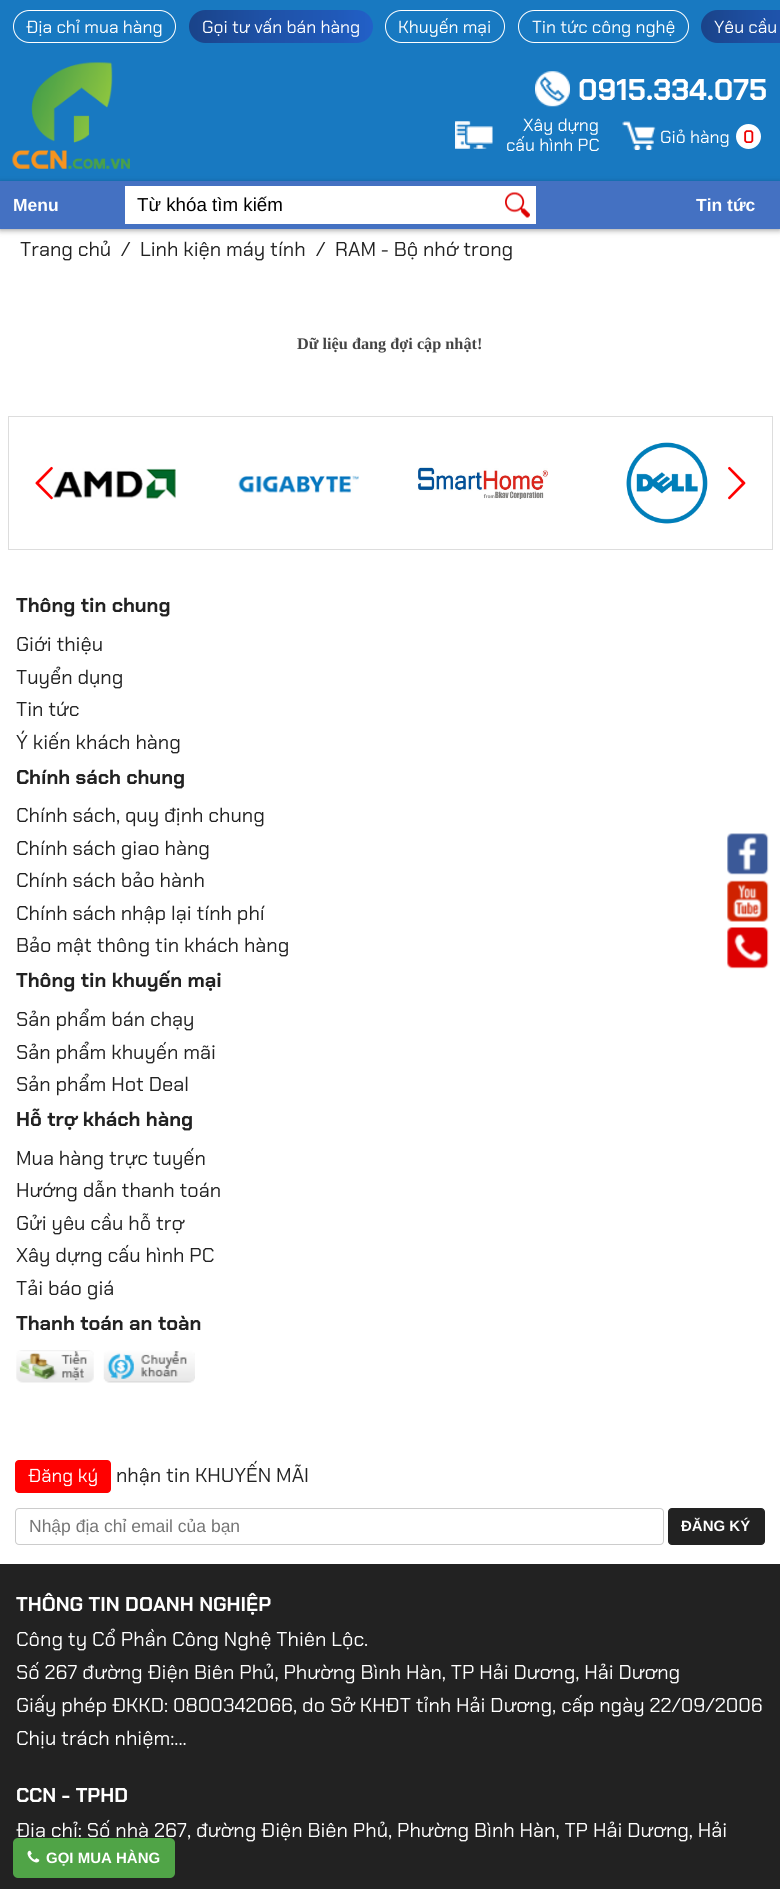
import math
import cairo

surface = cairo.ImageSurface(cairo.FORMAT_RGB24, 780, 1889)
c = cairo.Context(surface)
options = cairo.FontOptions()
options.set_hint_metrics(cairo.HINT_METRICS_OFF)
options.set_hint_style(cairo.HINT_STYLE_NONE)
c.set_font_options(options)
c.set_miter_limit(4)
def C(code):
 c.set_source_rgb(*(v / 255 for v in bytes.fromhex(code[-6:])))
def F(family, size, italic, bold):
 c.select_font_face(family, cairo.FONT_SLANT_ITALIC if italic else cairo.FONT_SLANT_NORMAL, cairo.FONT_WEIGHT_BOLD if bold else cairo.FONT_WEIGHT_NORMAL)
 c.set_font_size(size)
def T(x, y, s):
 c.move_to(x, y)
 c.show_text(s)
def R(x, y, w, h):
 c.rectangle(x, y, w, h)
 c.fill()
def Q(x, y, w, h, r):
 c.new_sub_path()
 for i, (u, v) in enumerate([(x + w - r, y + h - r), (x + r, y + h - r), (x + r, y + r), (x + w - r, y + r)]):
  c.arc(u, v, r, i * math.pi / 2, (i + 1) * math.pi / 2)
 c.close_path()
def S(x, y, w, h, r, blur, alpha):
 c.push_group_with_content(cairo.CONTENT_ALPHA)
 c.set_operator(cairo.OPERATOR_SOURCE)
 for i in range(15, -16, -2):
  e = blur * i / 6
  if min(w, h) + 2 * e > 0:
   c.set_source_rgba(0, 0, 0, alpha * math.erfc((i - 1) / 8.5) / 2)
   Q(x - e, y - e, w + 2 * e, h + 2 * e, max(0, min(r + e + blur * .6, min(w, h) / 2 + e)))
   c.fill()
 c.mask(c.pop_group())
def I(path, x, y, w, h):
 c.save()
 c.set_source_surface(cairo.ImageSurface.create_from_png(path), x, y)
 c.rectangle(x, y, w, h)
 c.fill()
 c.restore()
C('ffffff')
c.paint()
C('1879c1')
R(0,0,780,181)
Q(13.5,10.5,162,32,16)
C('ffffff')
c.set_line_width(1)
c.stroke()
F('Chakra Petch',17.5,0,0)
T(26,33,'Địa chỉ mua hàng')
gradient = cairo.LinearGradient(189,26,556,26)
gradient.add_color_stop_rgba(0,0.102,0.263,0.537,1)
gradient.add_color_stop_rgba(.2,0.118,0.318,0.651,1)
gradient.add_color_stop_rgba(.4,0.125,0.349,0.722,1)
gradient.add_color_stop_rgba(.5,0.133,0.376,0.784,1)
gradient.add_color_stop_rgba(.6,0.141,0.404,0.851,1)
gradient.add_color_stop_rgba(.75,0.149,0.443,0.929,1)
gradient.add_color_stop_rgba(.9,0.157,0.455,0.953,1)
gradient.add_color_stop_rgba(1,0.161,0.471,0.996,1)
c.set_source(gradient)
Q(189,10,184,33,16.5)
c.fill()
C('ffffff')
T(202,33,'Gọi tư vấn bán hàng')
Q(385.5,10.5,119,32,16)
c.stroke()
T(398,33,'Khuyến mại')
Q(518.5,10.5,170,32,16)
c.stroke()
T(532,33,'Tin tức công nghệ')
gradient = cairo.LinearGradient(701,26,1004,26)
gradient.add_color_stop_rgba(0,0.102,0.263,0.537,1)
gradient.add_color_stop_rgba(.2,0.118,0.318,0.651,1)
gradient.add_color_stop_rgba(.4,0.125,0.349,0.722,1)
gradient.add_color_stop_rgba(.5,0.133,0.376,0.784,1)
gradient.add_color_stop_rgba(.6,0.141,0.404,0.851,1)
gradient.add_color_stop_rgba(.75,0.149,0.443,0.929,1)
gradient.add_color_stop_rgba(.9,0.157,0.455,0.953,1)
gradient.add_color_stop_rgba(1,0.161,0.471,0.996,1)
c.set_source(gradient)
c.new_path()
c.move_to(717.5,10)
c.line_to(780,10)
c.line_to(780,43)
c.line_to(717.5,43)
c.curve_to(708.5,43,701,35.5,701,26.5)
c.curve_to(701,17.5,708.5,10,717.5,10)
c.close_path()
c.fill()
C('ffffff')
T(714,33,'Yêu cầu')
I('1.png',12,62,118,107)
I('2.png',535,71,35,36)
F('Chakra Petch',30,0,1)
T(578,100,'0915.334.075')
I('3.png',455,121,38,28)
F('Chakra Petch',17.5,0,0)
T(523,131,'Xây dựng')
T(506,151,'cấu hình PC')
I('4.png',622,121,34,29)
T(660,143,'Giỏ hàng')
c.new_path()
c.arc(748.5,136.5,12.5,0,2 * math.pi)
c.fill()
F('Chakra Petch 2',17.5,0,1)
C('ee0000')
T(743,143,'0')
C('000000')
S(0,183,780,47,0,3,.4)
C('4471c2')
R(0,181,780,48)
F('Liberation Sans',17.5,0,1)
C('ffffff')
T(13,211,'Menu')
R(125,186,411,38)
F('Liberation Sans',18.75,0,0)
C('000000')
T(137,211,'Từ khóa tìm kiếm')
I('5.png',505,192,25,26)
F('Liberation Sans',17.5,0,1)
C('ffffff')
T(696,211,'Tin tức')
F('Chakra Petch',20,0,0)
C('222222')
T(20,256,'Trang chủ')
T(121,256,'/')
T(140,256,'Linh kiện máy tính')
T(316,256,'/')
T(335,256,'RAM - Bộ nhớ trong')
F('Liberation Serif',16.25,0,1)
C('454545')
T(297,349,'Dữ liệu đang đợi cập nhật!')
c.rectangle(8.5,416.5,764,133)
C('dddddd')
c.stroke()
I('6.png',53,468,123,31)
I('7.png',238,475,121,18)
I('8.png',417,466,131,34)
I('9.png',626,442,82,82)
I('10.png',35,466,18,34)
I('11.png',728,466,18,34)
F('Chakra Petch',20,0,1)
C('222222')
T(16,612,'Thông tin chung')
F('Chakra Petch',20,0,0)
T(16,651,'Giới thiệu')
T(16,684,'Tuyển dụng')
T(16,716,'Tin tức')
T(16,749,'Ý kiến khách hàng')
F('Chakra Petch',20,0,1)
T(16,784,'Chính sách chung')
F('Chakra Petch',20,0,0)
T(16,822,'Chính sách, quy định chung')
T(16,855,'Chính sách giao hàng')
T(16,887,'Chính sách bảo hành')
T(16,920,'Chính sách nhập lại tính phí')
T(16,952,'Bảo mật thông tin khách hàng')
F('Chakra Petch',20,0,1)
T(16,987,'Thông tin khuyến mại')
F('Chakra Petch',20,0,0)
T(16,1026,'Sản phẩm bán chạy')
T(16,1059,'Sản phẩm khuyến mãi')
T(16,1091,'Sản phẩm Hot Deal')
F('Chakra Petch',20,0,1)
T(16,1126,'Hỗ trợ khách hàng')
F('Chakra Petch',20,0,0)
T(16,1165,'Mua hàng trực tuyến')
T(16,1197,'Hướng dẫn thanh toán')
T(16,1230,'Gửi yêu cầu hỗ trợ')
T(16,1262,'Xây dựng cấu hình PC')
T(16,1295,'Tải báo giá')
F('Chakra Petch',20,0,1)
T(16,1330,'Thanh toán an toàn')
I('12.png',16,1350,179,33)
C('ff0000')
Q(15,1460,96,33,4)
c.fill()
F('Chakra Petch',18.75,0,0)
C('ffffff')
T(28,1482,'Đăng ký')
F('Chakra Petch',20,0,0)
C('222222')
T(116,1482,'nhận tin KHUYẾN MÃI')
Q(15.5,1508.5,648,36,3.5)
C('cccccc')
c.stroke()
F('Liberation Sans',17.5,0,0)
C('757575')
T(29,1532,'Nhập địa chỉ email của bạn')
C('222222')
Q(668.5,1508.5,96,36,3.5)
c.fill_preserve()
c.stroke()
F('Liberation Sans',15,0,1)
C('ffffff')
T(681,1531,'ĐĂNG KÝ')
I('13.png',727,833,42,42)
I('14.png',727,880,42,42)
I('15.png',727,927,42,42)
C('222222')
R(0,1564,780,325)
F('Chakra Petch',20,0,1)
C('ffffff')
T(16,1611,'THÔNG TIN DOANH NGHIỆP')
F('Chakra Petch',20,0,0)
T(16,1646,'Công ty Cổ Phần Công Nghệ Thiên Lộc.')
T(16,1679,'Số 267 đường Điện Biên Phủ, Phường Bình Hàn, TP Hải Dương, Hải Dương')
T(16,1712,'Giấy phép ĐKKD: 0800342066, do Sở KHĐT tỉnh Hải Dương, cấp ngày 22/09/2006')
T(16,1745,'Chịu trách nhiệm:...')
F('Chakra Petch',20,0,1)
T(16,1802,'CCN - TPHD')
F('Chakra Petch',20,0,0)
T(16,1837,'Địa chỉ: Số nhà 267, đường Điện Biên Phủ, Phường Bình Hàn, TP Hải Dương, Hải')
C('50a447')
Q(13,1838,162,40,5)
c.fill()
I('16.png',27,1850,13,13)
F('Liberation Sans',15,0,1)
C('ffffff')
T(46,1863,'GỌI MUA HÀNG')
surface.write_to_png('o.png')
